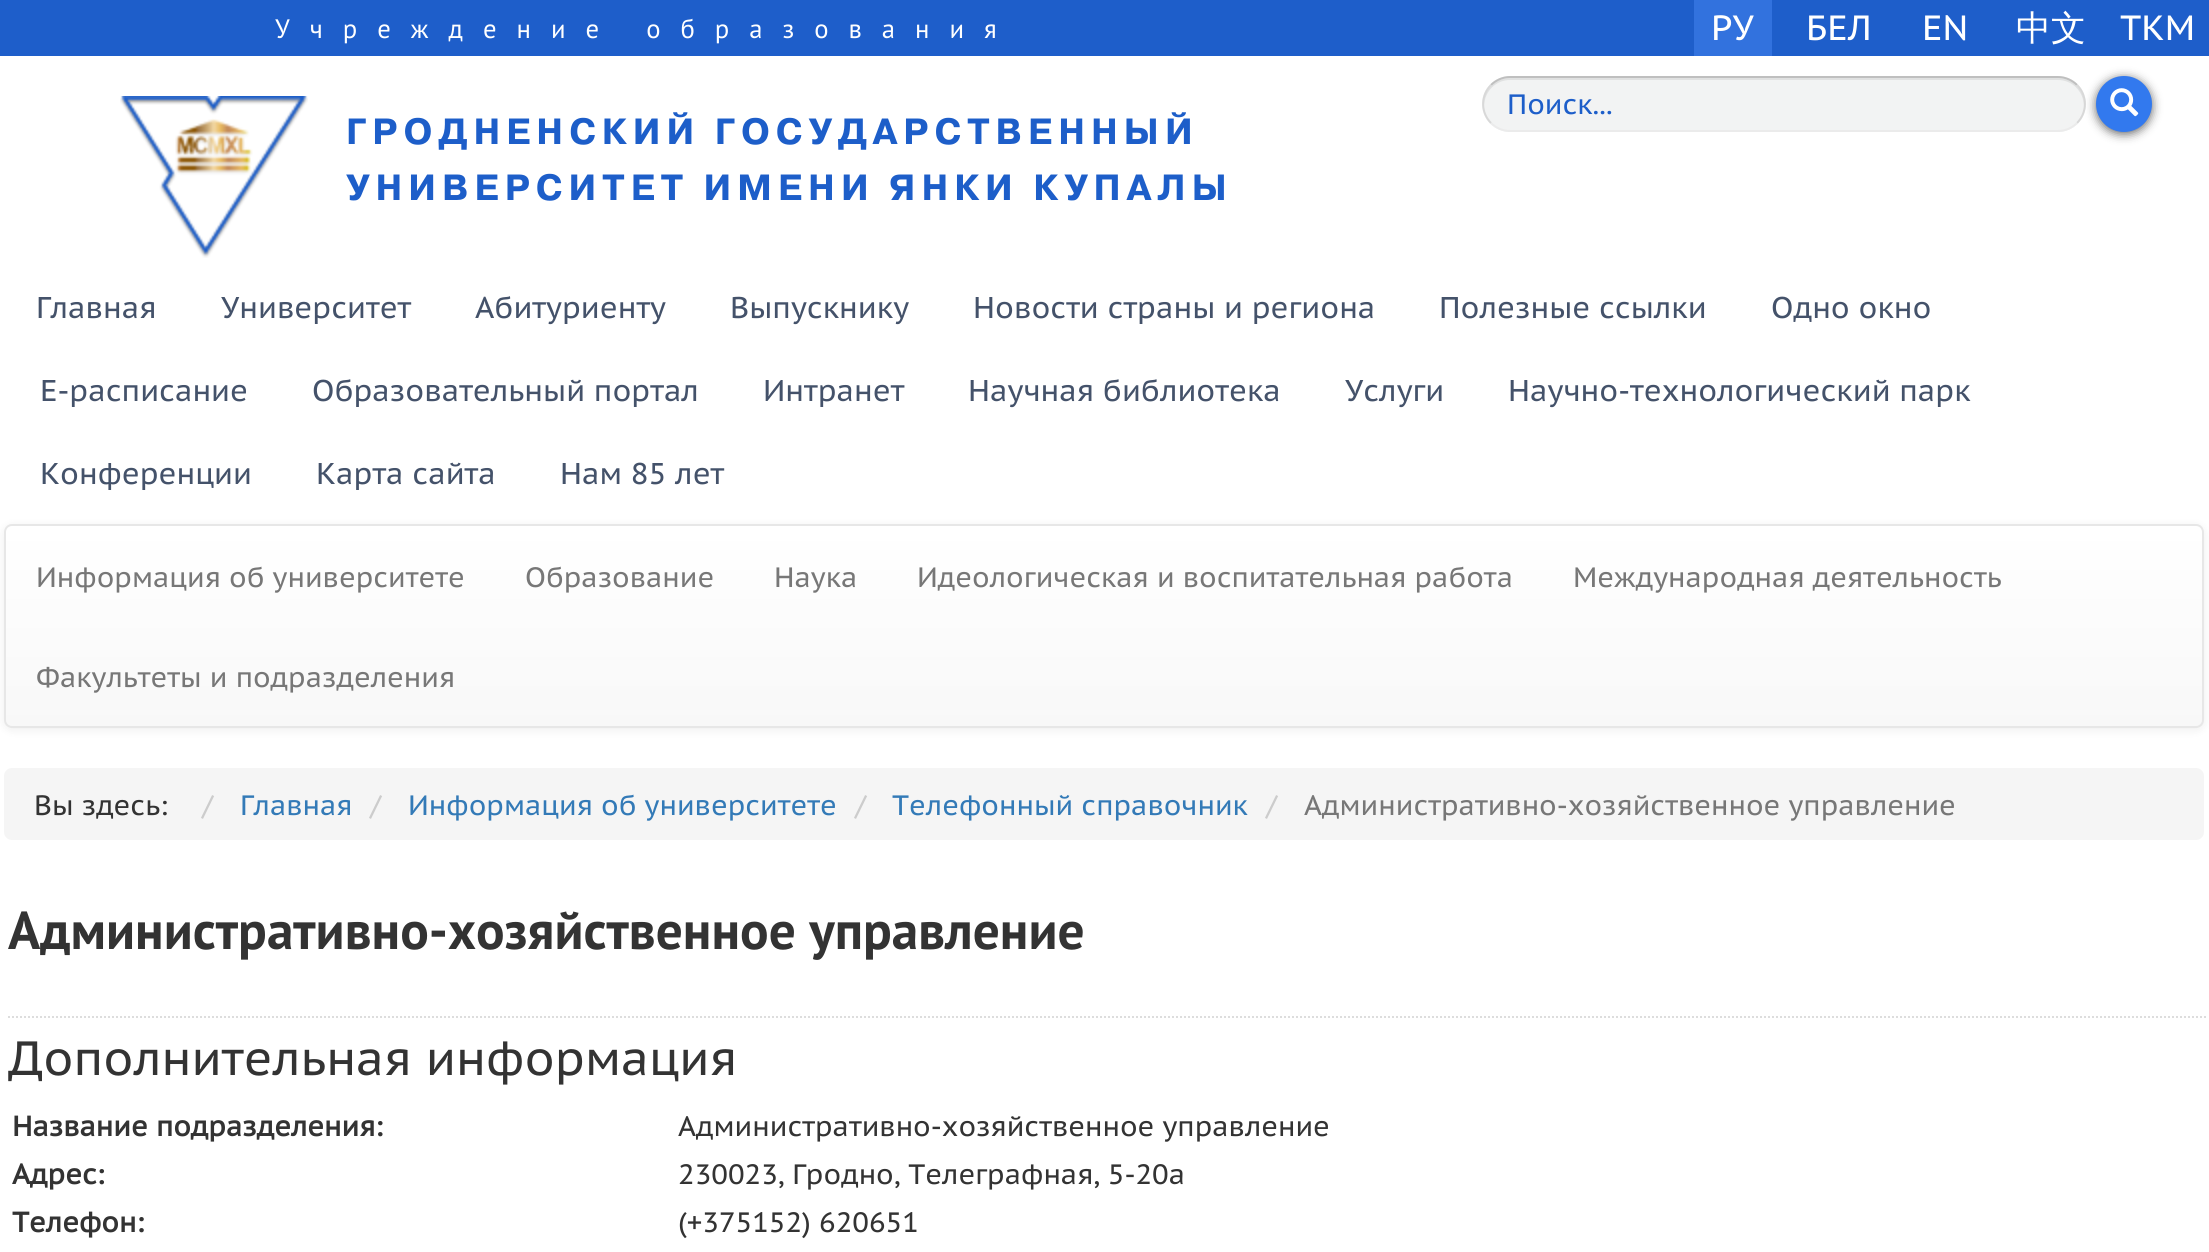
import math
import cairo

surface = cairo.ImageSurface(cairo.FORMAT_RGB24, 2209, 1252)
c = cairo.Context(surface)
options = cairo.FontOptions()
options.set_hint_metrics(cairo.HINT_METRICS_OFF)
options.set_hint_style(cairo.HINT_STYLE_NONE)
c.set_font_options(options)
c.set_miter_limit(4)
def C(code):
 c.set_source_rgb(*(v / 255 for v in bytes.fromhex(code[-6:])))
def F(family, size, italic, bold):
 c.select_font_face(family, cairo.FONT_SLANT_ITALIC if italic else cairo.FONT_SLANT_NORMAL, cairo.FONT_WEIGHT_BOLD if bold else cairo.FONT_WEIGHT_NORMAL)
 c.set_font_size(size)
def T(x, y, s):
 c.move_to(x, y)
 c.show_text(s)
def L(x, y, s, letter, word):
 c.move_to(x, y)
 for ch in s:
  c.show_text(ch)
  c.rel_move_to(letter + word * (ch == ' '), 0)
def R(x, y, w, h):
 c.rectangle(x, y, w, h)
 c.fill()
def Q(x, y, w, h, r):
 c.new_sub_path()
 for i, (u, v) in enumerate([(x + w - r, y + h - r), (x + r, y + h - r), (x + r, y + r), (x + w - r, y + r)]):
  c.arc(u, v, r, i * math.pi / 2, (i + 1) * math.pi / 2)
 c.close_path()
def S(x, y, w, h, r, blur, alpha):
 c.push_group_with_content(cairo.CONTENT_ALPHA)
 c.set_operator(cairo.OPERATOR_SOURCE)
 for i in range(15, -16, -2):
  e = blur * i / 6
  if min(w, h) + 2 * e > 0:
   c.set_source_rgba(0, 0, 0, alpha * math.erfc((i - 1) / 8.5) / 2)
   Q(x - e, y - e, w + 2 * e, h + 2 * e, max(0, min(r + e + blur * .6, min(w, h) / 2 + e)))
   c.fill()
 c.mask(c.pop_group())
def I(path, x, y, w, h):
 c.save()
 c.set_source_surface(cairo.ImageSurface.create_from_png(path), x, y)
 c.rectangle(x, y, w, h)
 c.fill()
 c.restore()
C('ffffff')
c.paint()
C('1e5eca')
R(0,0,2209,56)
F('PT Sans',26.7,0,0)
C('ffffff')
L(275,38,'Учреждение образования',20,0)
C('3272de')
R(1694,0,78,56)
F('PT Sans Caption',35,0,0)
C('ffffff')
T(1711,40,'РУ')
T(1806,40,'БЕЛ')
T(1922,40,'EN')
F('WenQuanYi Zen Hei Medium',35,0,0)
T(2016,40,'中文')
F('PT Sans Caption',35,0,0)
T(2120,40,'TKM')
C('f2f3f3')
Q(1482,76,604,56,28)
c.fill()
C('e0e1e1')
c.new_path()
c.move_to(1510,80)
c.line_to(2058,80)
c.curve_to(2072,80,2083,91,2084,105)
c.curve_to(2085,90,2073,78,2058,78)
c.line_to(1510,78)
c.curve_to(1495,78,1483,90,1484,105)
c.curve_to(1485,91,1496,80,1510,80)
c.close_path()
c.fill()
c.new_path()
c.move_to(1491,85)
c.curve_to(1496,80,1503,77,1510,77)
c.line_to(2058,77)
c.curve_to(2065,77,2072,80,2077,85)
C('bfbfbf')
c.stroke()
c.new_path()
c.move_to(2077,85)
c.curve_to(2087.5,95.5,2087.5,112.5,2077,123)
C('d8d8d8')
c.stroke()
c.new_path()
c.move_to(2077,123)
c.curve_to(2072,128,2065,131,2058,131)
c.line_to(1510,131)
c.curve_to(1503,131,1496,128,1491,123)
C('ebebeb')
c.stroke()
c.new_path()
c.move_to(1491,123)
c.curve_to(1480.5,112.5,1480.5,95.5,1491,85)
C('d8d8d8')
c.stroke()
F('PT Sans Caption',28,0,0)
C('1d5ec9')
T(1507,114,'Поиск...')
C('323232')
S(2096,78,56,56,28,5,.75)
C('3279ee')
c.arc(2124,104,28,0,2 * math.pi)
c.fill()
I('1.png',2110,88,29,29)
I('2.png',120,96,188,162)
F('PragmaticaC',36.4,0,1)
C('1d5ec9')
L(346,144,'ГРОДНЕНСКИЙ ГОСУДАРСТВЕННЫЙ',6,0)
L(346,200,'УНИВЕРСИТЕТ ИМЕНИ ЯНКИ КУПАЛЫ',6,0)
F('PT Sans Caption',30,0,0)
C('44526a')
T(36,318,'Главная')
T(221,318,'Университет')
T(475,318,'Абитуриенту')
T(730,318,'Выпускнику')
T(973,318,'Новости страны и региона')
T(1439,318,'Полезные ссылки')
T(1771,318,'Одно окно')
T(40,401,'E-расписание')
T(312,401,'Образовательный портал')
T(763,401,'Интранет')
T(968,401,'Научная библиотека')
T(1345,401,'Услуги')
T(1508,401,'Научно-технологический парк')
T(40,484,'Конференции')
T(316,484,'Карта сайта')
T(560,484,'Нам 85 лет')
C('000000')
S(4,526,2200,204,8,5,.07)
c.save()
Q(4,524,2200,204,8)
c.clip()
gradient = cairo.LinearGradient(1104,526,1104,726)
gradient.add_color_stop_rgba(0,1,1,1,1)
gradient.add_color_stop_rgba(1,0.973,0.973,0.973,1)
c.set_source(gradient)
R(4,526,2200,200)
c.restore()
Q(5,525,2198,202,7)
C('e7e7e7')
c.stroke()
F('PT Sans Caption',28,0,0)
C('777777')
T(36,587,'Информация об университете')
T(525,587,'Образование')
T(774,587,'Наука')
T(917,587,'Идеологическая и воспитательная работа')
T(1573,587,'Международная деятельность')
T(36,687,'Факультеты и подразделения')
C('f5f5f5')
Q(4,768,2200,72,8)
c.fill()
C('333333')
T(34,815,'Вы здесь:')
C('cccccc')
T(202,815,'/')
C('337ab7')
T(240,815,'Главная')
C('cccccc')
T(370,815,'/')
C('337ab7')
T(408,815,'Информация об университете')
C('cccccc')
T(855,815,'/')
C('337ab7')
T(892,815,'Телефонный справочник')
C('cccccc')
T(1266,815,'/')
C('777777')
T(1304,815,'Административно-хозяйственное управление')
F('PT Sans',53.3,0,1)
C('333333')
T(8,949,'Административно-хозяйственное управление')
c.new_path()
c.move_to(8,1017)
c.line_to(2208,1017)
C('dddddd')
c.set_dash([2,2])
c.stroke()
F('PT Sans Caption',48,0,0)
C('333333')
T(8,1075,'Дополнительная информация')
F('PT Sans Caption',28,0,1)
T(12,1136,'Название подразделения:')
F('PT Sans Caption',28,0,0)
T(678,1136,'Административно-хозяйственное управление')
F('PT Sans Caption',28,0,1)
T(12,1184,'Адрес:')
F('PT Sans Caption',28,0,0)
T(678,1184,'230023, Гродно, Телеграфная, 5-20а')
F('PT Sans Caption',28,0,1)
T(12,1232,'Телефон:')
F('PT Sans Caption',28,0,0)
T(678,1232,'(+375152) 620651')
surface.write_to_png('o.png')
